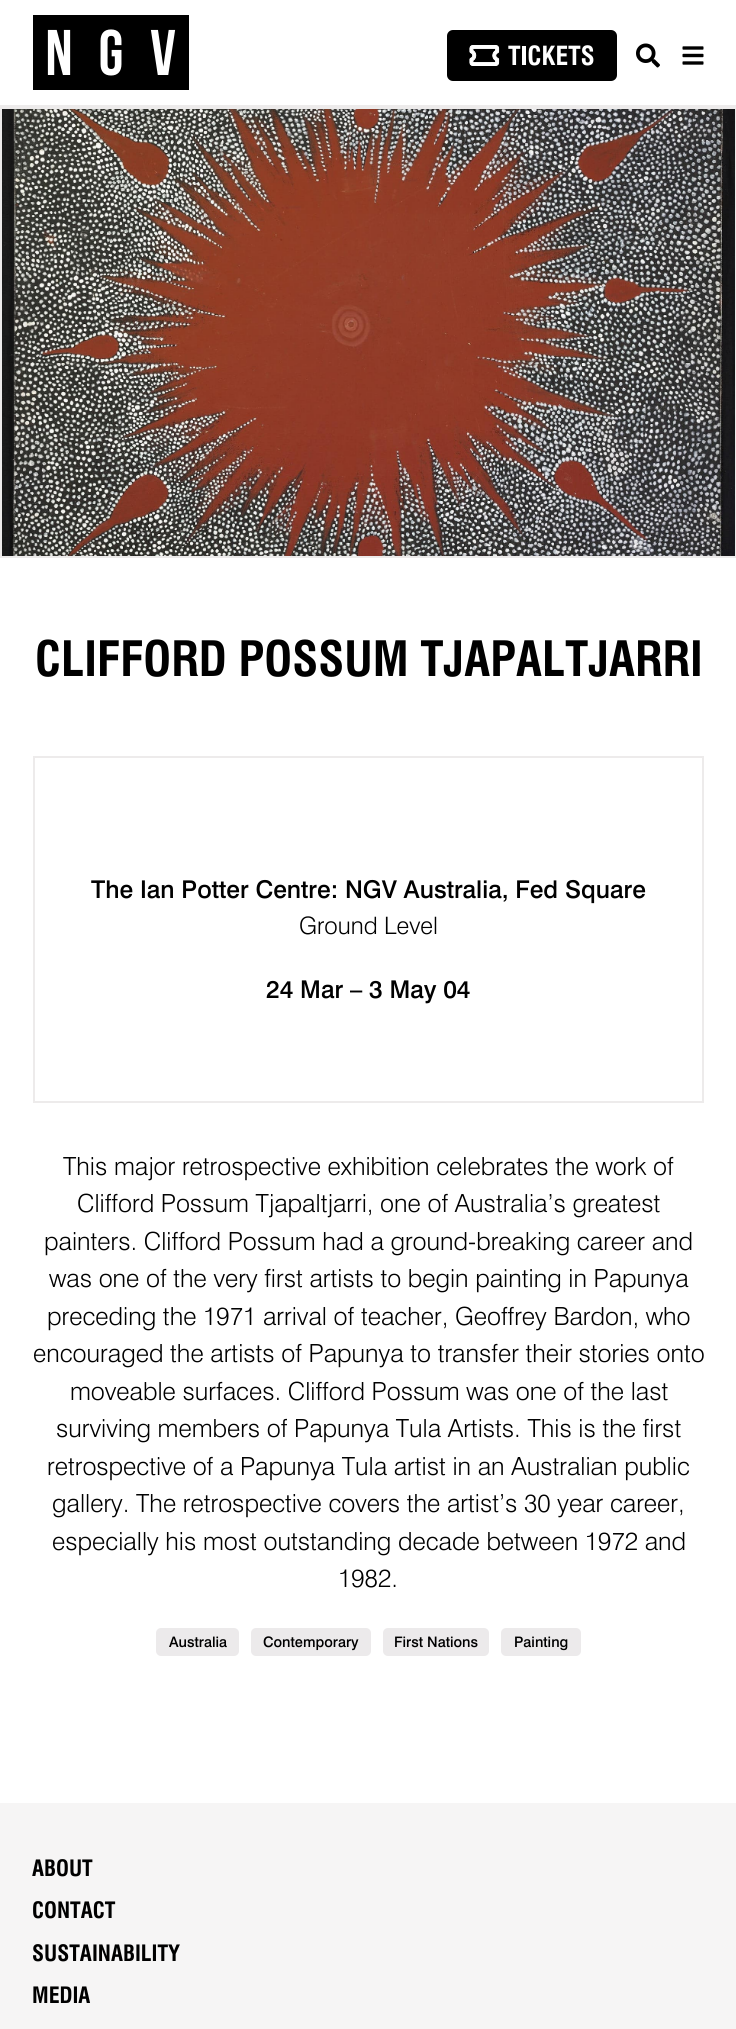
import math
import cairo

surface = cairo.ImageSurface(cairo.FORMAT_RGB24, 736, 2029)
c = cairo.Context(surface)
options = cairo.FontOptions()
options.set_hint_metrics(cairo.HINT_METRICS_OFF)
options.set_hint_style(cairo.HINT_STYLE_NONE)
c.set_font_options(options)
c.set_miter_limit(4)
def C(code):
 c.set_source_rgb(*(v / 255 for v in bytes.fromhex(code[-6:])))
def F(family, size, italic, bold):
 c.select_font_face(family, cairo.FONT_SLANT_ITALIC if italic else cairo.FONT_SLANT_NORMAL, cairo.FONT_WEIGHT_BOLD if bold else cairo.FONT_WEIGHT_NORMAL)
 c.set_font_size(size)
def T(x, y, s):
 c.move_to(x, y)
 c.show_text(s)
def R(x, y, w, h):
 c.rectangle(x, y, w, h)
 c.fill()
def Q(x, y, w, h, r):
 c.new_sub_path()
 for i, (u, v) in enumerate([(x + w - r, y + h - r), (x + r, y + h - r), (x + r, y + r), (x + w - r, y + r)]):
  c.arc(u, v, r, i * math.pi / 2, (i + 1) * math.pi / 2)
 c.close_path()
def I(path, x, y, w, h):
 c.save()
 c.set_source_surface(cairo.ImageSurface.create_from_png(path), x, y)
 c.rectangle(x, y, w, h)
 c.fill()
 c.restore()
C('ffffff')
c.paint()
I('1.png',33,15,156,75)
C('000000')
Q(447,30,170,51,6)
c.fill()
I('2.png',469,45,125,21)
I('3.png',636,43,24,25)
I('4.png',682,46,22,19)
C('edebeb')
R(0,105,736,2)
I('5.png',2,109,733,447)
c.rectangle(1,108,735,449)
c.stroke()
F('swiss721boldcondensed',47.5,0,0)
C('000000')
T(35,676,'CLIFFORD POSSUM TJAPALTJARRI')
c.rectangle(34,757,669,345)
C('edebeb')
c.stroke()
F('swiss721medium',24.5,0,0)
C('000000')
T(91,898,'The Ian Potter Centre: NGV Australia, Fed Square')
F('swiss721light',24,0,0)
T(299,934,'Ground Level')
F('swiss721medium',24.5,0,0)
T(266,998,'24 Mar – 3 May 04')
F('swiss721light',25,0,0)
T(63,1175,'This major retrospective exhibition celebrates the work of')
T(77,1212,'Clifford Possum Tjapaltjarri, one of Australia’s greatest')
T(44,1250,'painters. Clifford Possum had a ground-breaking career and')
T(49,1287,'was one of the very first artists to begin painting in Papunya')
T(47,1325,'preceding the 1971 arrival of teacher, Geoffrey Bardon, who')
T(33,1362,'encouraged the artists of Papunya to transfer their stories onto')
T(70,1400,'moveable surfaces. Clifford Possum was one of the last')
T(56,1437,'surviving members of Papunya Tula Artists. This is the first')
T(47,1475,'retrospective of a Papunya Tula artist in an Australian public')
T(52,1512,'gallery. The retrospective covers the artist’s 30 year career,')
T(52,1550,'especially his most outstanding decade between 1972 and')
T(338,1587,'1982.')
C('eceaeb')
Q(156,1628,83,28,5)
c.fill()
F('swiss721medium',14.5,0,0)
C('000000')
T(169,1647,'Australia')
C('eceaeb')
Q(251,1628,120,28,5)
c.fill()
C('000000')
T(263,1647,'Contemporary')
C('eceaeb')
Q(383,1628,106,28,5)
c.fill()
C('000000')
T(394,1647,'First Nations')
C('eceaeb')
Q(501,1628,80,28,5)
c.fill()
C('000000')
T(514,1647,'Painting')
C('f6f5f5')
R(0,1803,736,226)
F('swiss721boldcondensed',22,0,0)
C('000000')
T(32,1876,'ABOUT')
T(32,1918,'CONTACT')
T(32,1961,'SUSTAINABILITY')
T(32,2003,'MEDIA')
surface.write_to_png('o.png')
